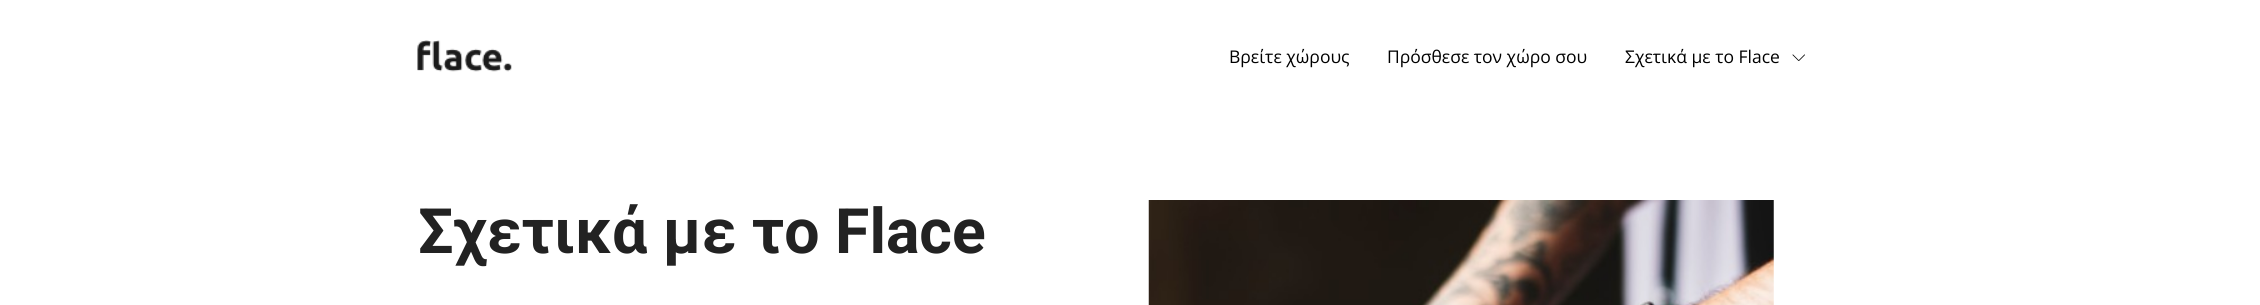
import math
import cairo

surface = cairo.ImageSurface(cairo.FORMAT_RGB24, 2260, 305)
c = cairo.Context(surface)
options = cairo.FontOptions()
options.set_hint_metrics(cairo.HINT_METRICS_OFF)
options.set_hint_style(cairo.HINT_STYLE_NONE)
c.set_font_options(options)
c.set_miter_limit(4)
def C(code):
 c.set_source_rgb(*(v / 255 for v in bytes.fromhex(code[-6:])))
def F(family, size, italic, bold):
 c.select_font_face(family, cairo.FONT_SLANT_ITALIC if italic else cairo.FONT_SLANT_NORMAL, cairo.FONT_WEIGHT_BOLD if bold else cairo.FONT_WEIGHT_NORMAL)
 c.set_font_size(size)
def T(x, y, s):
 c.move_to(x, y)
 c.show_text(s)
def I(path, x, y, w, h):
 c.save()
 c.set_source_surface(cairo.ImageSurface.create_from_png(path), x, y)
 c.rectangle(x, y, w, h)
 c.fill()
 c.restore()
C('ffffff')
c.paint()
I('1.png',417,40,95,32)
F('Open Sans',17.5,0,0)
C('000000')
T(1229,63,'Βρείτε χώρους')
T(1387,63,'Πρόσθεσε τον χώρο σου')
T(1625,63,'Σχετικά με το Flace')
I('2.png',1792,54,13,7)
F('Roboto',62.5,0,1)
C('222222')
T(418,253,'Σχετικά με το Flace')
I('3.png',1148,200,626,105)
surface.write_to_png('o.png')
